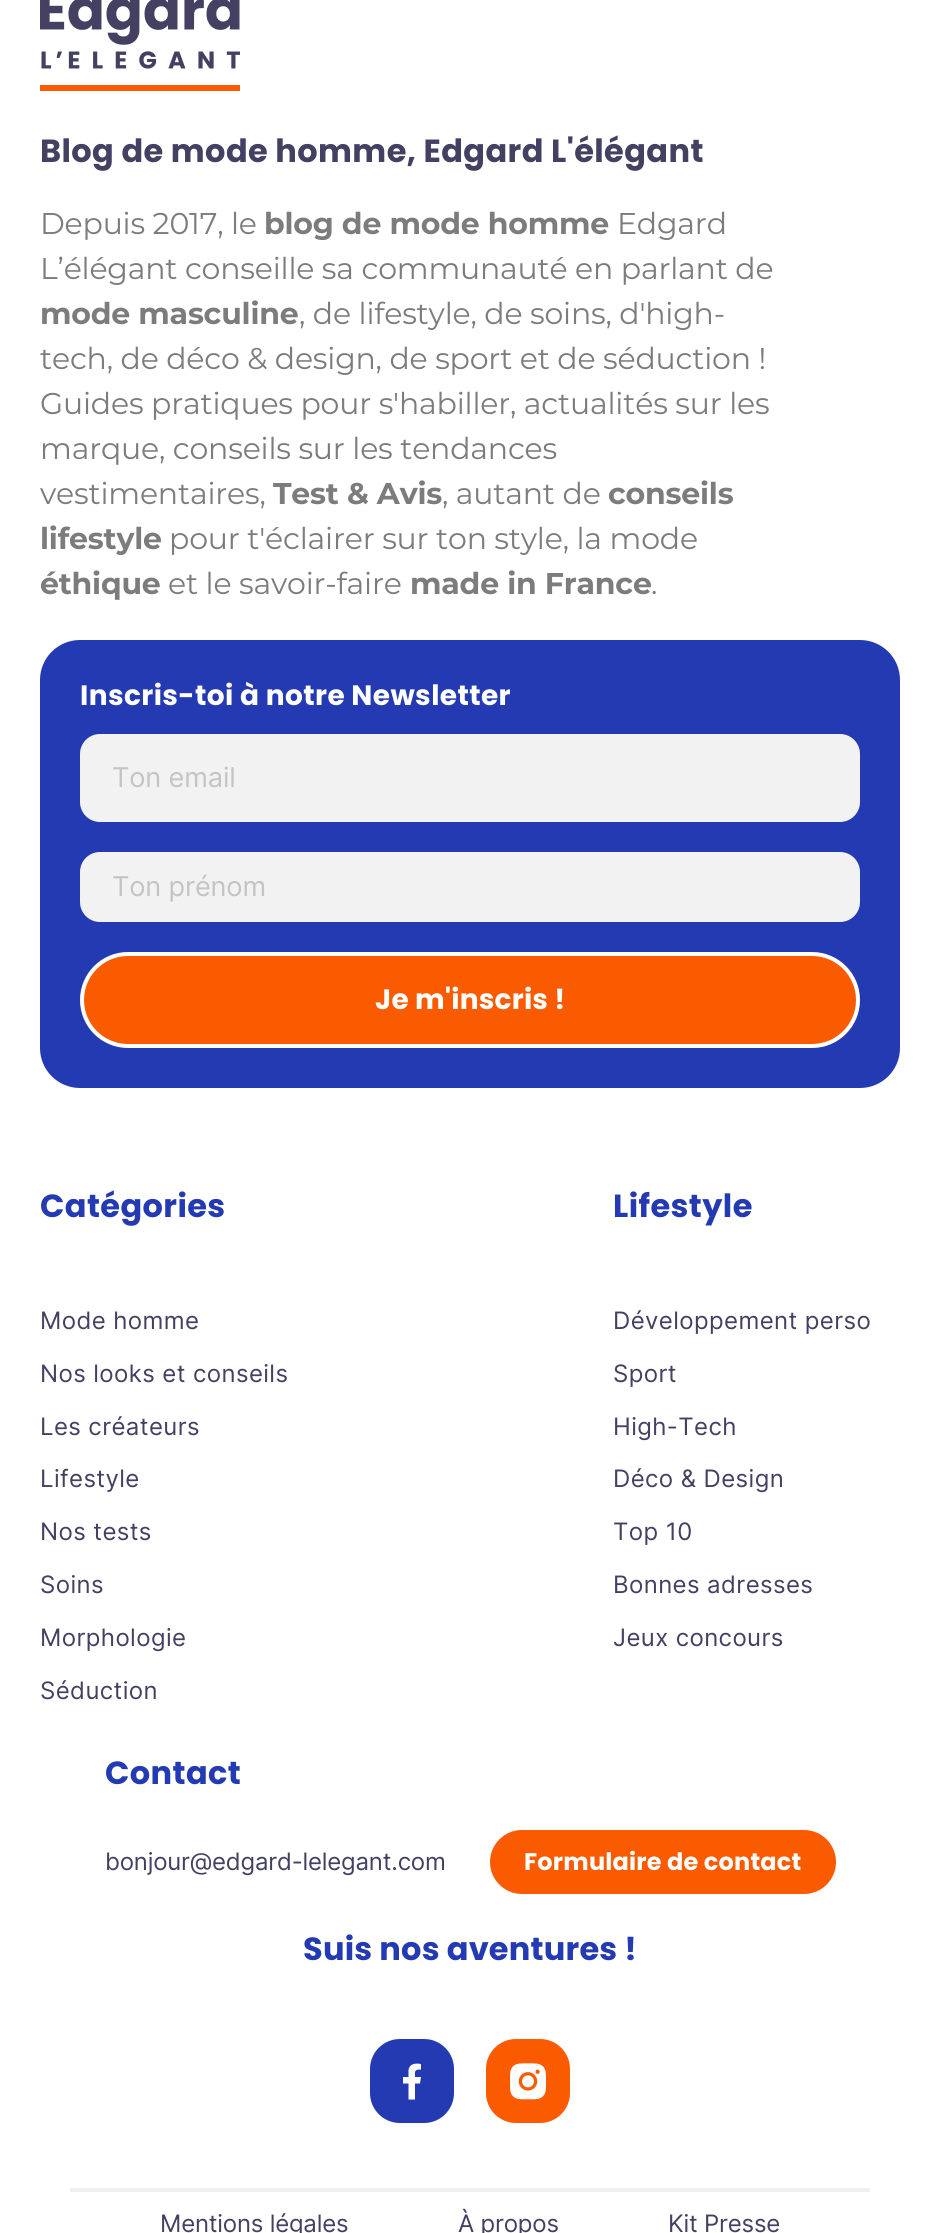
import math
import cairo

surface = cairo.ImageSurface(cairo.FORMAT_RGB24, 940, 2233)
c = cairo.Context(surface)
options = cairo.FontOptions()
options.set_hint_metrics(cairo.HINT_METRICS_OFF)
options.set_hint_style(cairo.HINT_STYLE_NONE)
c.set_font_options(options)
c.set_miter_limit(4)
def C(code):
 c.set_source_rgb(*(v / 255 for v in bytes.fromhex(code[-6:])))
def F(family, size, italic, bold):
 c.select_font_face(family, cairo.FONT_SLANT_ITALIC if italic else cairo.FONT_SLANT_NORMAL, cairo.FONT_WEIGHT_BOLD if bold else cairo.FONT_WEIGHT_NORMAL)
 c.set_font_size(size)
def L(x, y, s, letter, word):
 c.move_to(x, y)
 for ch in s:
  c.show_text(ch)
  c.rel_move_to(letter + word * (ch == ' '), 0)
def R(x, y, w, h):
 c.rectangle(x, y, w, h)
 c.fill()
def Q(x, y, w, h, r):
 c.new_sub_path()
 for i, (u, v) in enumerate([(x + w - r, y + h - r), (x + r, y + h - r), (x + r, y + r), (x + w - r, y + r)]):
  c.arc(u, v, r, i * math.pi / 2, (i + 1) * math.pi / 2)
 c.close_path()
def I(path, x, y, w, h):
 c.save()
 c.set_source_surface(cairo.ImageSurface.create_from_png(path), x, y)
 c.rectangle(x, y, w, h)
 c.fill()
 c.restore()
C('ffffff')
c.paint()
I('1.png',40,0,200,91)
F('Poppins',32,0,1)
C('434062')
L(40,162,'Blog de mode homme, Edgard L\'élégant',.4,0)
F('Montserrat',30,0,0)
C('7c7c7c')
L(40,234,'Depuis 2017, le',-.2,0)
F('Montserrat',30,0,1)
L(264,234,'blog de mode homme',-.2,0)
F('Montserrat',30,0,0)
L(617,234,'Edgard',-.2,0)
L(40,279,'L’élégant conseille sa communauté en parlant de',-.2,0)
F('Montserrat',30,0,1)
L(40,324,'mode masculine',-.2,0)
F('Montserrat',30,0,0)
L(299,324,', de lifestyle, de soins, d\'high-',-.2,0)
L(40,369,'tech, de déco & design, de sport et de séduction !',-.2,0)
L(40,414,'Guides pratiques pour s\'habiller, actualités sur les',-.2,0)
L(40,459,'marque, conseils sur les tendances',-.2,0)
L(40,504,'vestimentaires,',-.2,0)
F('Montserrat',30,0,1)
L(273,504,'Test & Avis',-.2,0)
F('Montserrat',30,0,0)
L(442,504,', autant de',-.2,0)
F('Montserrat',30,0,1)
L(608,504,'conseils',-.2,0)
L(40,549,'lifestyle',-.2,0)
F('Montserrat',30,0,0)
L(169,549,'pour t\'éclairer sur ton style, la mode',-.2,0)
F('Montserrat',30,0,1)
L(40,594,'éthique',-.2,0)
F('Montserrat',30,0,0)
L(168,594,'et le savoir-faire',-.2,0)
F('Montserrat',30,0,1)
L(410,594,'made in France',-.2,0)
F('Montserrat',30,0,0)
L(651,594,'.',-.2,0)
C('233ab3')
Q(40,640,860,448,40)
c.fill()
F('Poppins',28,0,1)
C('ffffff')
L(80,705,'Inscris-toi à notre Newsletter',.4,0)
C('f2f2f2')
Q(80,734,780,88,20)
c.fill()
F('Inter',27.25,0,0)
C('c4c4c4')
L(112,787,'Ton email',-.2,0)
C('f2f2f2')
Q(80,852,780,70,20)
c.fill()
C('c4c4c4')
L(112,896,'Ton prénom',-.2,0)
C('fa5b00')
Q(82,954,776,92,46)
c.fill_preserve()
C('ffffff')
c.set_line_width(4)
c.stroke()
F('Poppins',28,0,1)
L(375,1009,'Je m\'inscris !',.2,0)
F('Poppins',32,0,1)
C('233ab3')
L(40,1217,'Catégories',.4,0)
F('Inter',24,0,0)
C('434062')
L(40,1329,'Mode homme',.4,0)
L(40,1382,'Nos looks et conseils',.4,0)
L(40,1435,'Les créateurs',.4,0)
L(40,1487,'Lifestyle',.4,0)
L(40,1540,'Nos tests',.4,0)
L(40,1593,'Soins',.4,0)
L(40,1646,'Morphologie',.4,0)
L(40,1699,'Séduction',.4,0)
F('Poppins',32,0,1)
C('233ab3')
L(613,1217,'Lifestyle',.4,0)
F('Inter',24,0,0)
C('434062')
L(613,1329,'Développement perso',.4,0)
L(613,1382,'Sport',.4,0)
L(613,1435,'High-Tech',.4,0)
L(613,1487,'Déco & Design',.4,0)
L(613,1540,'Top 10',.4,0)
L(613,1593,'Bonnes adresses',.4,0)
L(613,1646,'Jeux concours',.4,0)
F('Poppins',32,0,1)
C('233ab3')
L(105,1784,'Contact',.4,0)
F('Inter',24,0,0)
C('434062')
L(105,1870,'bonjour@edgard-lelegant.com',-.2,0)
C('fa5b00')
Q(490,1830,346,64,32)
c.fill()
F('Poppins',24,0,1)
C('ffffff')
L(524,1870,'Formulaire de contact',.2,0)
F('Poppins',32,0,1)
C('233ab3')
L(303,1960,'Suis nos aventures !',.2,0)
Q(370,2039,84,84,30)
c.fill()
C('ffffff')
c.new_path()
c.move_to(420,2083.5)
c.line_to(421,2077)
c.line_to(415,2077)
c.curve_to(415,2071,414,2069.5,421,2069.5)
c.line_to(421,2064)
c.curve_to(415.5,2063,409.5,2063.5,408.5,2070)
c.line_to(408.5,2077)
c.line_to(403,2077)
c.line_to(403,2083.5)
c.line_to(408.5,2083.5)
c.line_to(408.5,2099.5)
c.line_to(415,2099.5)
c.line_to(415,2083.5)
c.close_path()
c.fill()
I('2.png',486,2039,84,84)
C('f0f0f0')
R(70,2188,800,4)
F('Inter',24,0,0)
C('434062')
L(160,2232,'Mentions légales',-.2,0)
L(458,2232,'À propos',-.2,0)
L(668,2232,'Kit Presse',-.2,0)
surface.write_to_png('o.png')
